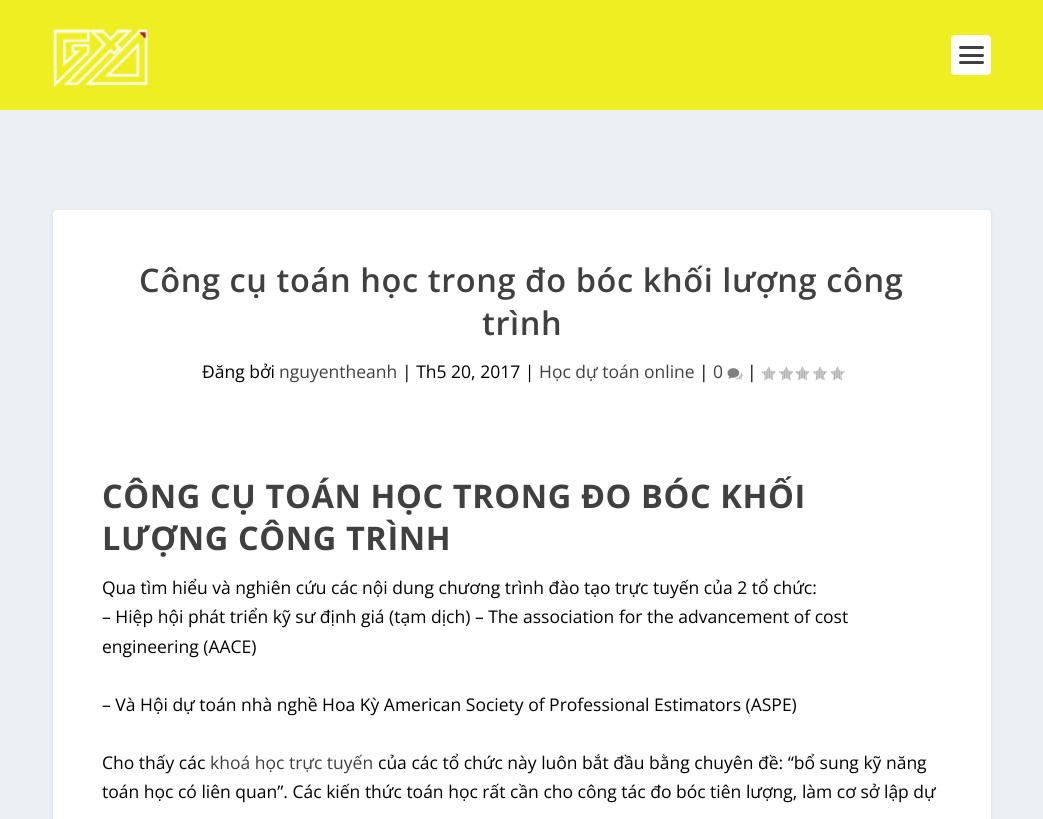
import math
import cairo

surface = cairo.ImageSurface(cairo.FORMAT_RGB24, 1043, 819)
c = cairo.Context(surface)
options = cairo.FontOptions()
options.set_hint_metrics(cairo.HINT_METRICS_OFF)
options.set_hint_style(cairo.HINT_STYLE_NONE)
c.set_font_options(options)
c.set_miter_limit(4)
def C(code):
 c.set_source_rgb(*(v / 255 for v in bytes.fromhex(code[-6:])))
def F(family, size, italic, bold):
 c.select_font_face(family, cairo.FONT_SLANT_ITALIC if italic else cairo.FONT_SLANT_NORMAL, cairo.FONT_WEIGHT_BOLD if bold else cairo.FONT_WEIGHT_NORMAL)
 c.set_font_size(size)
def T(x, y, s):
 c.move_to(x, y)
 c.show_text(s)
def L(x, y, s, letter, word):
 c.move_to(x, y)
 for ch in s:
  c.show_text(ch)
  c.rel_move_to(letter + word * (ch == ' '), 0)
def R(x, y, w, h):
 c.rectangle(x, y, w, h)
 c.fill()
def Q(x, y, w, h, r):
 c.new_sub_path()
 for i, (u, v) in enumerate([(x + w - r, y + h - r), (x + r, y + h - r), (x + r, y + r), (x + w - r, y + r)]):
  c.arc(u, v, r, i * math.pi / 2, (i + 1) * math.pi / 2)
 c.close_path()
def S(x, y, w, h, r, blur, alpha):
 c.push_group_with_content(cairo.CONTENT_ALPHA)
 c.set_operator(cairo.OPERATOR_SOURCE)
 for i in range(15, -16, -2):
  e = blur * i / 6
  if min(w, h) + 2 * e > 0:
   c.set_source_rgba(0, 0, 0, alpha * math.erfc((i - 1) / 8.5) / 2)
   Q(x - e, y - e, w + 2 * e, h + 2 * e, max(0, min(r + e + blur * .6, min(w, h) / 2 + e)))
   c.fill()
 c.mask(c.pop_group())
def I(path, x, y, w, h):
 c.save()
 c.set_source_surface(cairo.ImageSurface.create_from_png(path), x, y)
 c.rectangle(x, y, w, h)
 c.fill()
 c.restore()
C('ecf0f5')
c.paint()
C('eeee22')
R(0,0,1043,110)
I('1.png',53,29,95,59)
C('ffffff')
Q(951,35,40,40,4)
c.fill()
C('404040')
Q(959,46,25,3,1.5)
c.fill()
Q(959,54,25,3,1.5)
c.fill()
Q(959,61,25,3,1.5)
c.fill()
C('000000')
S(53,211,938,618,4,2,.1)
C('ffffff')
Q(53,210,938,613,4)
c.fill()
F('Open Sans SemiBold',32.5,0,0)
C('404040')
L(139,292,'Công cụ toán học trong đo bóc khối lượng công',.6,0)
L(482,335,'trình',.6,0)
F('Open Sans',17.5,0,0)
C('000000')
T(202,378,'Đăng bởi')
C('404040')
T(279,378,'nguyentheanh')
C('000000')
T(402,378,'| Th5 20, 2017 |')
C('404040')
T(539,378,'Học dự toán online')
C('000000')
T(699,378,'|')
C('404040')
T(713,378,'0')
I('2.png',727,368,16,12)
C('000000')
T(747,378,'|')
I('3.png',761,366,15,15)
I('4.png',779,366,15,15)
I('5.png',795,366,15,15)
I('6.png',812,366,16,15)
I('5.png',830,366,15,15)
F('Open Sans',32.5,0,1)
C('404040')
L(102,508,'CÔNG CỤ TOÁN HỌC TRONG ĐO BÓC KHỐI',.6,0)
L(102,550,'LƯỢNG CÔNG TRÌNH',.6,0)
F('Open Sans',17.5,0,0)
C('000000')
T(102,594,'Qua tìm hiểu và nghiên cứu các nội dung chương trình đào tạo trực tuyến của 2 tổ chức:')
T(102,623,'– Hiệp hội phát triển kỹ sư định giá (tạm dịch) – The association for the advancement of cost')
T(102,653,'engineering (AACE)')
T(102,711,'– Và Hội dự toán nhà nghề Hoa Kỳ American Society of Professional Estimators (ASPE)')
T(102,769,'Cho thấy các')
C('404040')
T(210,769,'khoá học trực tuyến')
C('000000')
T(378,769,'của các tổ chức này luôn bắt đầu bằng chuyên đề: “bổ sung kỹ năng')
T(102,798,'toán học có liên quan”. Các kiến thức toán học rất cần cho công tác đo bóc tiên lượng, làm cơ sở lập dự')
surface.write_to_png('o.png')
